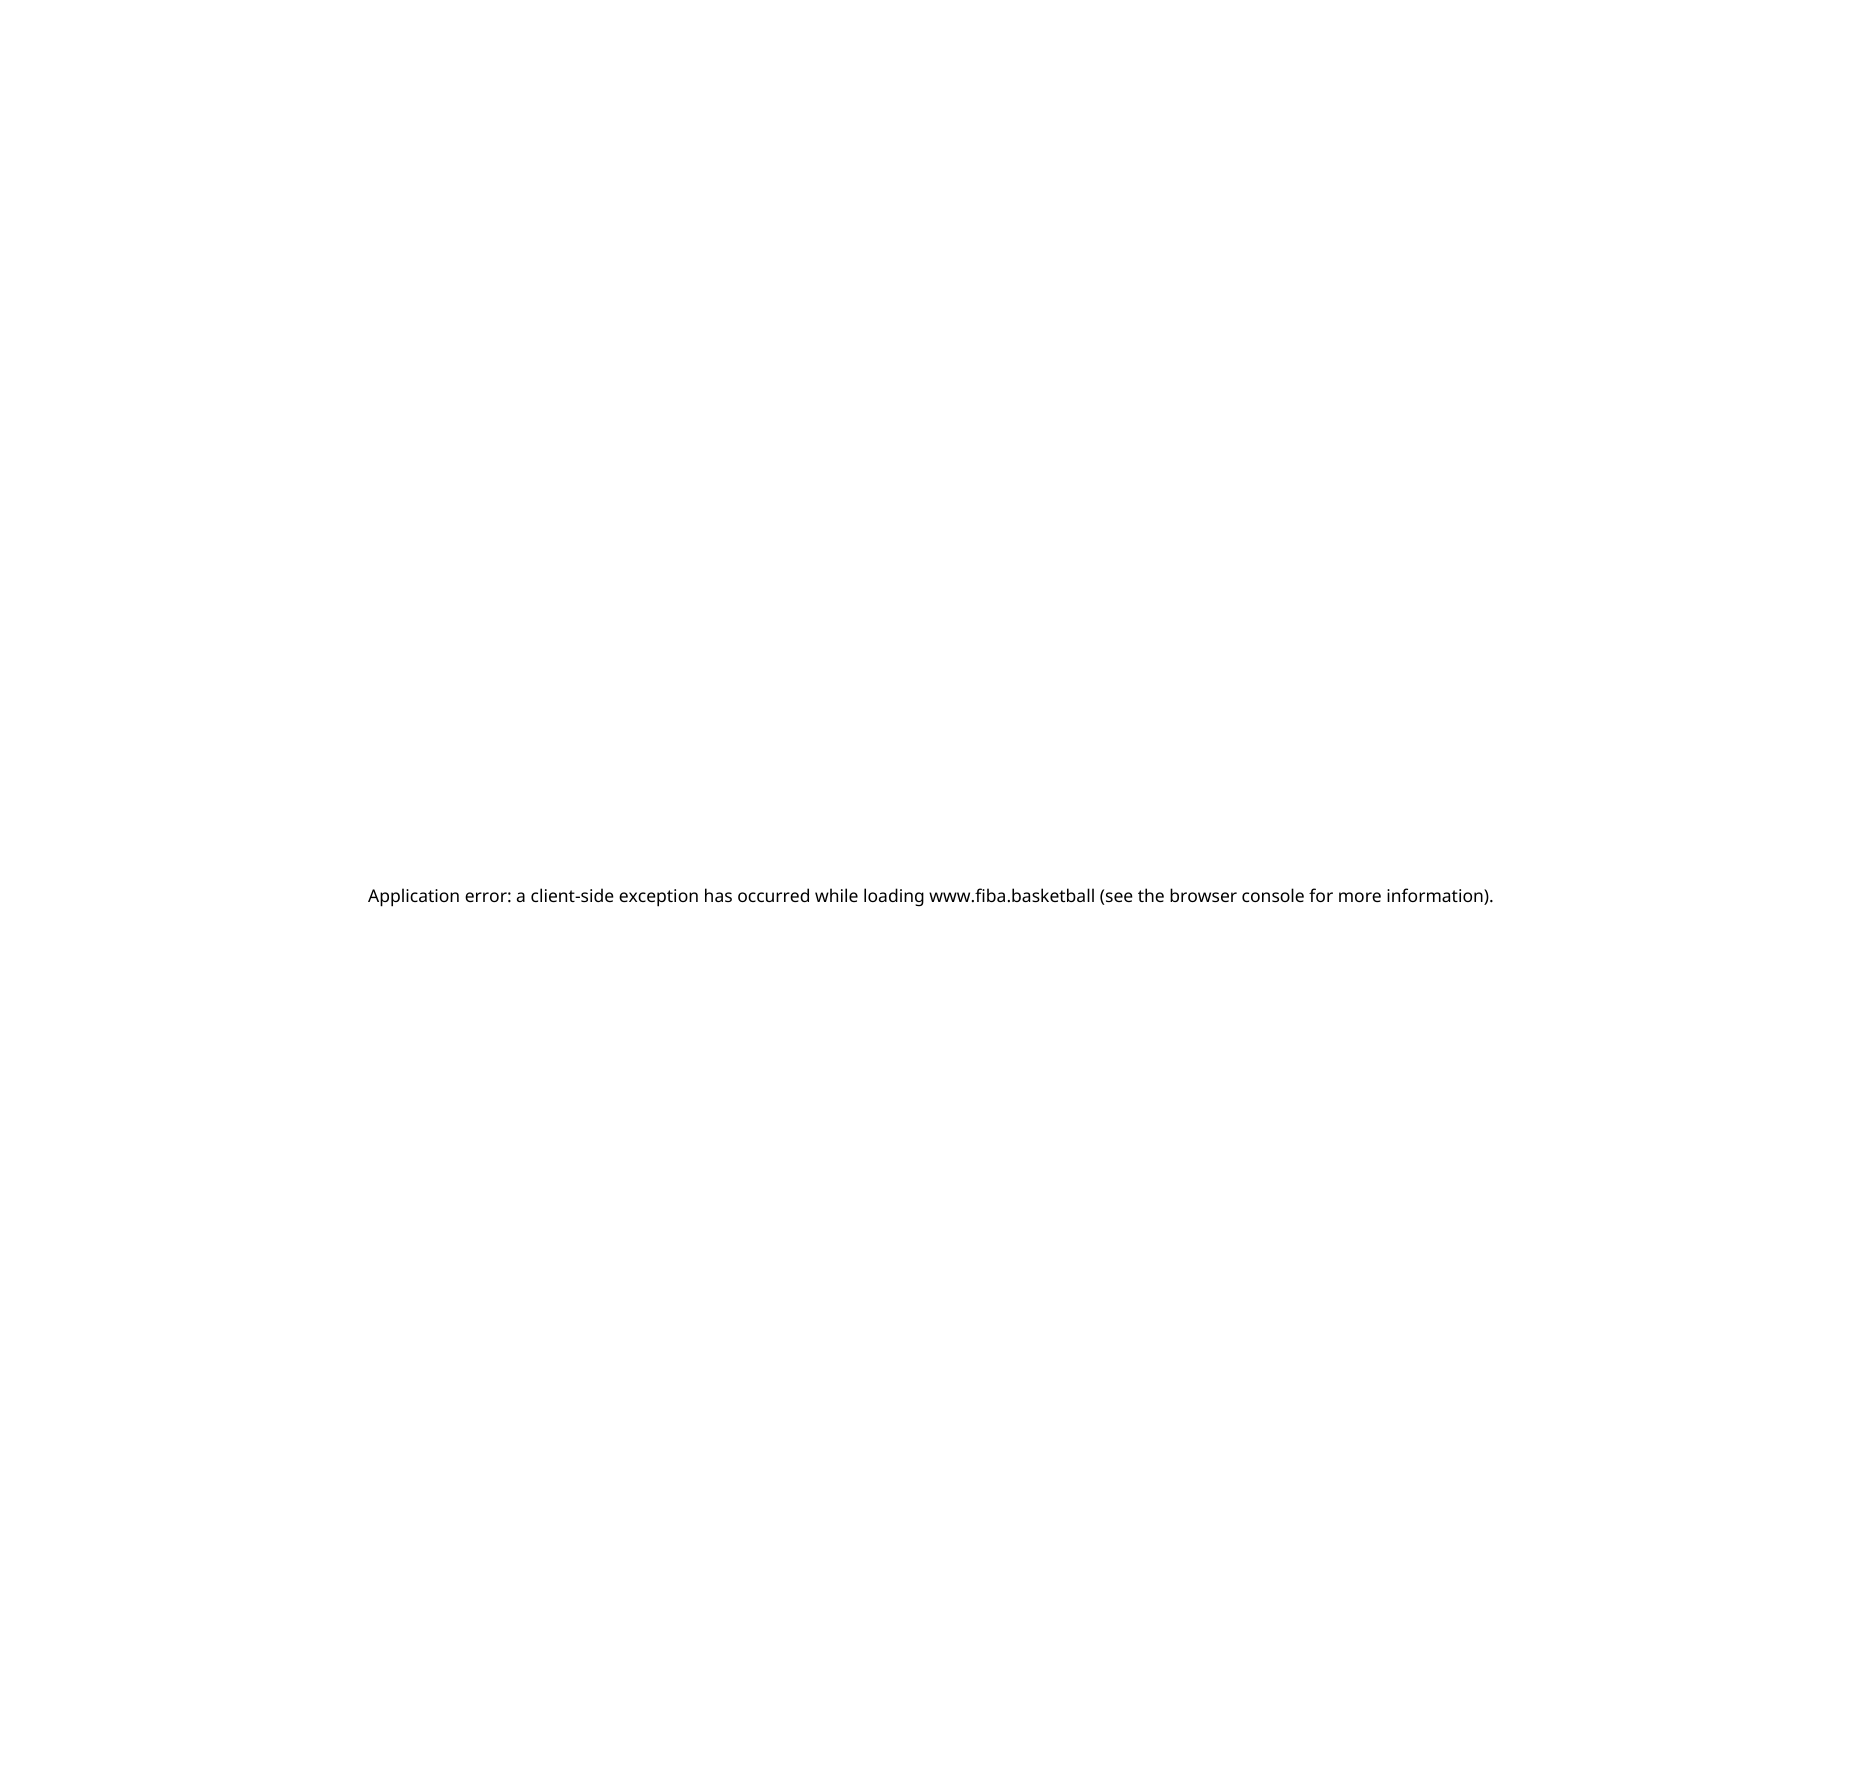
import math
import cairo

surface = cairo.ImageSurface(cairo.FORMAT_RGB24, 1862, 1791)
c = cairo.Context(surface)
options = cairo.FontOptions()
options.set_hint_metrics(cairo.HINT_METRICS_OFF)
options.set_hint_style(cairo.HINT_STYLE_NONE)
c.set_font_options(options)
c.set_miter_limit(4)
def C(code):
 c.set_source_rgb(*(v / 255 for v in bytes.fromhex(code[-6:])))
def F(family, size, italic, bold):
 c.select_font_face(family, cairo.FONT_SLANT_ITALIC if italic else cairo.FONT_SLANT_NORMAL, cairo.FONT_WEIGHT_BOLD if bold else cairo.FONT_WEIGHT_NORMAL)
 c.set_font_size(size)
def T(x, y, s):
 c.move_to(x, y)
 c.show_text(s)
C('ffffff')
c.paint()
F('Noto Sans',17.5,0,0)
C('000000')
T(368,902,'Application error: a client-side exception has occurred while loading www.fiba.basketball (see the browser console for more information).')
surface.write_to_png('o.png')
